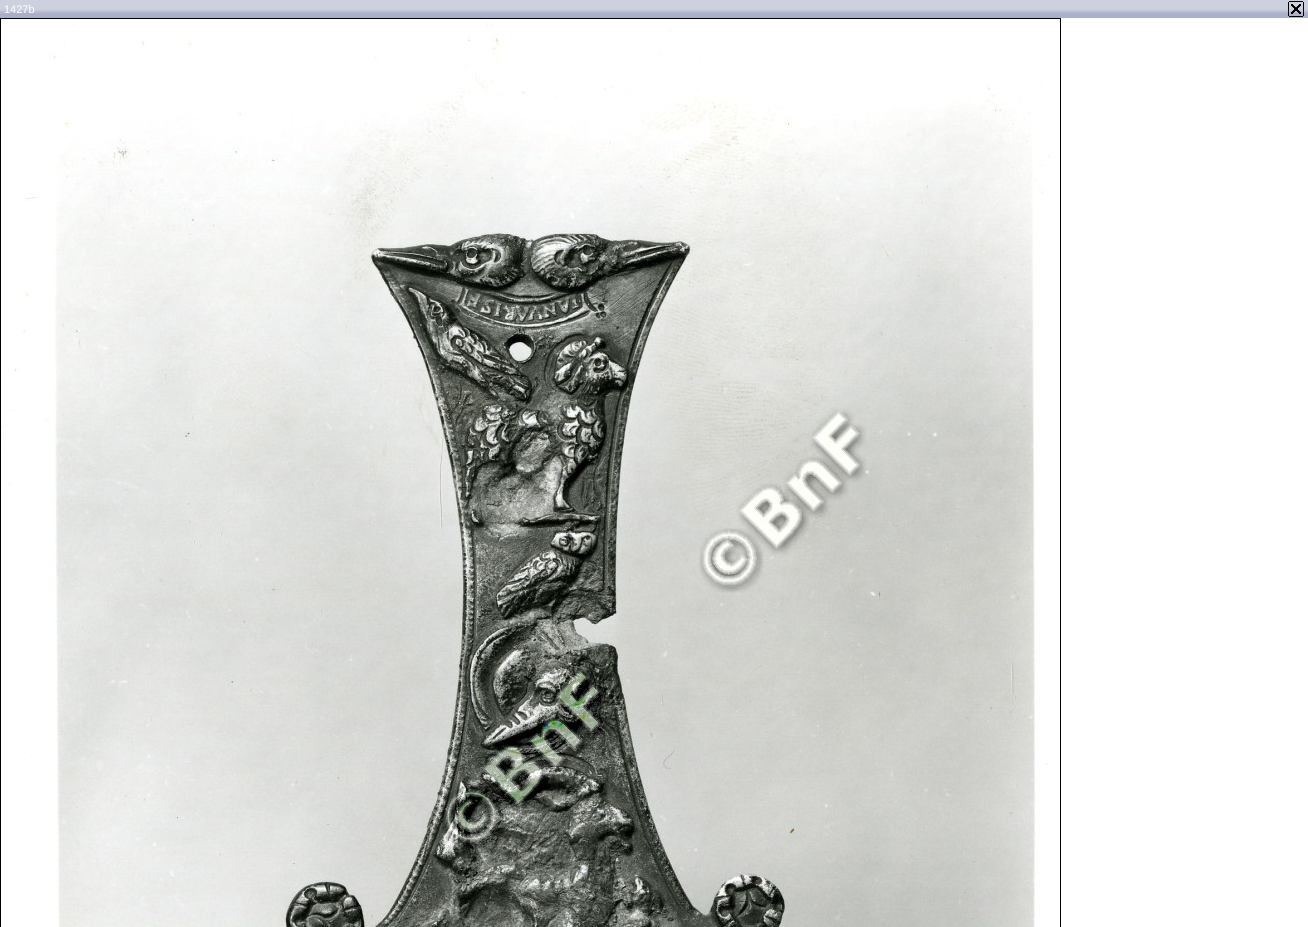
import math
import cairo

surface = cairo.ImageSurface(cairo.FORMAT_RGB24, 1308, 927)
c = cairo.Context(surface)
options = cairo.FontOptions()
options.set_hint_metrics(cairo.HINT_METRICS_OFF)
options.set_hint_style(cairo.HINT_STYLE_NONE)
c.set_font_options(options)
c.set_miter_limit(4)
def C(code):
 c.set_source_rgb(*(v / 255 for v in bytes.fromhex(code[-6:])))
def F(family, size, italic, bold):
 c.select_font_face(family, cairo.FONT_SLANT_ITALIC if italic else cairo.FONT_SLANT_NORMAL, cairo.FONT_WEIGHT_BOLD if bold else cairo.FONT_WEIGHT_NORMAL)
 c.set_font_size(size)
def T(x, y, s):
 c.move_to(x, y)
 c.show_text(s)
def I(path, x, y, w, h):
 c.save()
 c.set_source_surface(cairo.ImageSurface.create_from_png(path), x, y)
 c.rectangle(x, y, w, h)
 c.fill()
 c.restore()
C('ffffff')
c.paint()
I('1.png',0,0,829,18)
F('Liberation Sans',11,0,0)
C('ffffff')
T(4,13,'1427b')
I('2.png',829,0,479,18)
I('3.png',1288,1,16,16)
c.rectangle(.5,18.5,1060,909)
C('000000')
c.set_line_width(1)
c.stroke()
I('4.png',1,21,1050,906)
surface.write_to_png('o.png')
